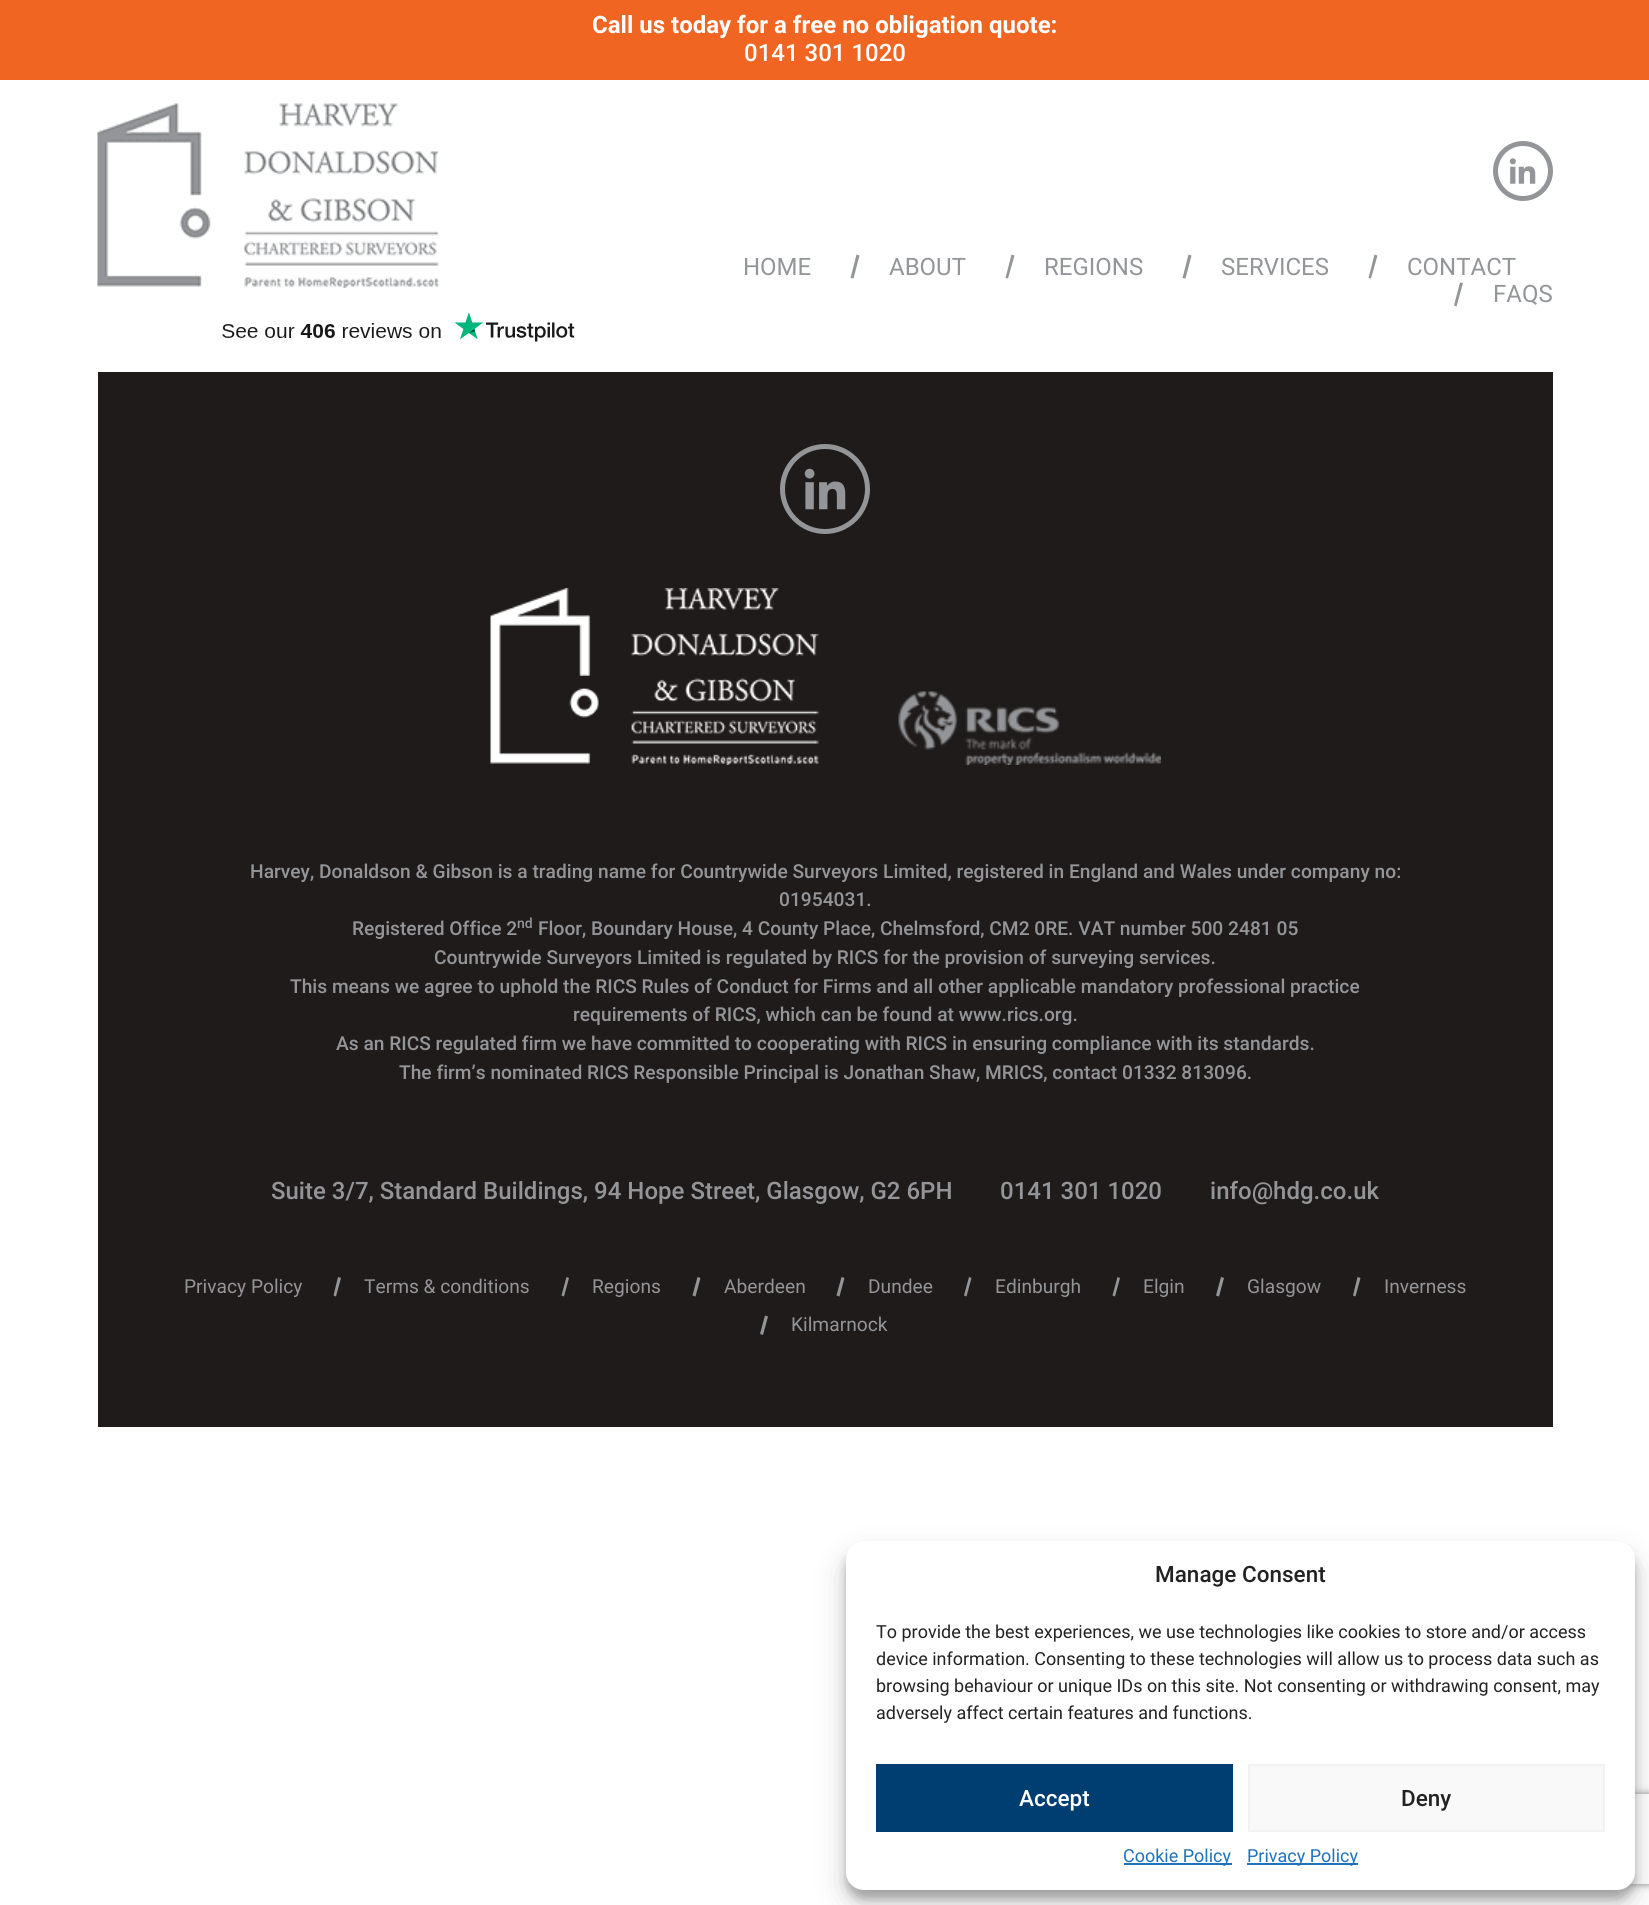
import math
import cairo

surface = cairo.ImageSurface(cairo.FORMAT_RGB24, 1649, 1905)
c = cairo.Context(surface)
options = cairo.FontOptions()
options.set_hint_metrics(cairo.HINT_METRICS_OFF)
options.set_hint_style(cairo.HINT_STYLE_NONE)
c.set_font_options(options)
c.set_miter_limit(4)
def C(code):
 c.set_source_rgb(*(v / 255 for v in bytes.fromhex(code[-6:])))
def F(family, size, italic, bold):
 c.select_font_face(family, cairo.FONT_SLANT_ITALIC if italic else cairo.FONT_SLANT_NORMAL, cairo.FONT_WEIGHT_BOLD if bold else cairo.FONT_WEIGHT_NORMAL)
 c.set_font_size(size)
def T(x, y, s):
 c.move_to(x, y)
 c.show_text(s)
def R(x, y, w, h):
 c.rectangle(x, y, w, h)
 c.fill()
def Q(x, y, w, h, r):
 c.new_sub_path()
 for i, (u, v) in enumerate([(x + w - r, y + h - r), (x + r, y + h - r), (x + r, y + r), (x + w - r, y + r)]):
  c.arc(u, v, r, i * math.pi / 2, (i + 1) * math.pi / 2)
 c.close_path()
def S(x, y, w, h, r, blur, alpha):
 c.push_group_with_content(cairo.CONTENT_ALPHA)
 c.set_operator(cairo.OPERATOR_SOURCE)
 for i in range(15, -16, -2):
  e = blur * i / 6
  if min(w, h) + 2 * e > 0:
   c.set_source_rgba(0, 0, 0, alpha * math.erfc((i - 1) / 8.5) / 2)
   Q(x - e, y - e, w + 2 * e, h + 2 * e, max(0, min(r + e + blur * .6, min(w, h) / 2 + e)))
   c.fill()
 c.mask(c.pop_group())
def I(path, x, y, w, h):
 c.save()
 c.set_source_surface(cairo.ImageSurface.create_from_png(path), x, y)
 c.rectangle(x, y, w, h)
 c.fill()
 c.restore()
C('ffffff')
c.paint()
C('f16522')
R(0,0,1649,80)
F('Roboto',24,0,1)
C('ffffff')
T(592,33,'Call us today for a free no obligation quote:')
F('Roboto Medium',24,0,0)
T(744,61,'0141 301 1020')
I('1.png',97,103,342,185)
I('2.png',222,312,353,30)
c.arc(1523,171,27.5,0,2 * math.pi)
C('939598')
c.set_line_width(5)
c.stroke()
I('3.png',1509,158,27,26)
F('Roboto',24,0,0)
T(743,275,'HOME')
c.new_path()
c.move_to(856.5,254.5)
c.line_to(859.5,255.5)
c.line_to(853.5,278.5)
c.line_to(850.5,278)
c.close_path()
c.fill()
T(889,275,'ABOUT')
c.new_path()
c.move_to(1011.5,254.5)
c.line_to(1014.5,255.5)
c.line_to(1008,278.5)
c.line_to(1005.5,278)
c.close_path()
c.fill()
T(1044,275,'REGIONS')
c.new_path()
c.move_to(1188.5,254.5)
c.line_to(1191.5,255.5)
c.line_to(1185.5,278.5)
c.line_to(1182.5,278)
c.close_path()
c.fill()
T(1221,275,'SERVICES')
c.new_path()
c.move_to(1374.5,254.5)
c.line_to(1377.5,255.5)
c.line_to(1371,278.5)
c.line_to(1368.5,278)
c.close_path()
c.fill()
T(1407,275,'CONTACT')
c.new_path()
c.move_to(1460,282.5)
c.line_to(1463,283)
c.line_to(1456.5,306.5)
c.line_to(1454,305.5)
c.close_path()
c.fill()
T(1493,302,'FAQS')
C('201b1b')
R(98,372,1455,1055)
c.new_path()
c.arc(825,489,42.5,0,2 * math.pi)
C('939598')
c.stroke()
I('4.png',804,468,42,42)
I('5.png',490,588,329,177)
I('6.png',898,691,263,74)
F('Roboto Medium',19.2,0,0)
T(250,878,'Harvey, Donaldson & Gibson is a trading name for Countrywide Surveyors Limited, registered in England and Wales under company no:')
T(779,906,'01954031.')
T(352,935,'Registered Office 2')
F('Roboto Medium',14,0,0)
T(517,928,'nd')
F('Roboto Medium',19.2,0,0)
T(538,935,'Floor, Boundary House, 4 County Place, Chelmsford, CM2 0RE. VAT number 500 2481 05')
T(434,964,'Countrywide Surveyors Limited is regulated by RICS for the provision of surveying services.')
T(290,993,'This means we agree to uphold the RICS Rules of Conduct for Firms and all other applicable mandatory professional practice')
T(573,1021,'requirements of RICS, which can be found at www.rics.org.')
T(336,1050,'As an RICS regulated firm we have committed to cooperating with RICS in ensuring compliance with its standards.')
T(399,1079,'The firm’s nominated RICS Responsible Principal is Jonathan Shaw, MRICS, contact 01332 813096.')
F('Roboto Medium',24,0,0)
T(271,1199,'Suite 3/7, Standard Buildings, 94 Hope Street, Glasgow, G2 6PH')
T(1000,1199,'0141 301 1020')
T(1210,1199,'info@hdg.co.uk')
F('Roboto',19.2,0,0)
T(184,1293,'Privacy Policy')
c.new_path()
c.move_to(338,1277)
c.line_to(341,1278)
c.line_to(336,1296.5)
c.line_to(333.5,1295.5)
c.close_path()
c.fill()
T(364,1293,'Terms & conditions')
c.new_path()
c.move_to(566.5,1277)
c.line_to(569,1278)
c.line_to(564,1296.5)
c.line_to(561.5,1295.5)
c.close_path()
c.fill()
T(592,1293,'Regions')
c.new_path()
c.move_to(697.5,1277)
c.line_to(700.5,1278)
c.line_to(695.5,1296.5)
c.line_to(692.5,1295.5)
c.close_path()
c.fill()
T(724,1293,'Aberdeen')
c.new_path()
c.move_to(841.5,1277)
c.line_to(844.5,1278)
c.line_to(839.5,1296.5)
c.line_to(836.5,1295.5)
c.close_path()
c.fill()
T(868,1293,'Dundee')
c.new_path()
c.move_to(969,1277)
c.line_to(971.5,1278)
c.line_to(966.5,1296.5)
c.line_to(964,1295.5)
c.close_path()
c.fill()
T(995,1293,'Edinburgh')
c.new_path()
c.move_to(1117.5,1277)
c.line_to(1120,1278)
c.line_to(1115,1296.5)
c.line_to(1112.5,1295.5)
c.close_path()
c.fill()
T(1143,1293,'Elgin')
c.new_path()
c.move_to(1221,1277)
c.line_to(1224,1278)
c.line_to(1219,1296.5)
c.line_to(1216,1295.5)
c.close_path()
c.fill()
T(1247,1293,'Glasgow')
c.new_path()
c.move_to(1357.5,1277)
c.line_to(1360.5,1278)
c.line_to(1355.5,1296.5)
c.line_to(1353,1295.5)
c.close_path()
c.fill()
T(1384,1293,'Inverness')
c.new_path()
c.move_to(765,1315.5)
c.line_to(768,1316.5)
c.line_to(763,1335)
c.line_to(760,1334)
c.close_path()
c.fill()
T(791,1331,'Kilmarnock')
C('000000')
S(846,1550,789,349,18,4.5,.23)
S(846,1556,789,349,18,15,.19)
c.save()
c.set_fill_rule(cairo.FILL_RULE_EVEN_ODD)
c.new_path()
c.move_to(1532,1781)
c.line_to(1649,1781)
c.line_to(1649,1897)
c.line_to(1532,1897)
c.close_path()
c.move_to(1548,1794)
c.line_to(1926,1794)
c.curve_to(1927.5,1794,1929,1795.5,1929,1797)
c.line_to(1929,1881)
c.curve_to(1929,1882.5,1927.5,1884,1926,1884)
c.line_to(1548,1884)
c.curve_to(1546.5,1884,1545,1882.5,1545,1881)
c.line_to(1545,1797)
c.curve_to(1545,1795.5,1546.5,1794,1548,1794)
c.close_path()
c.clip()
C('808080')
S(1545,1794,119,90,3,4,1)
c.restore()
C('ffffff')
Q(846,1541,789,349,18)
c.fill()
F('Roboto Medium',22.5,0,0)
C('222222')
T(1155,1582,'Manage Consent')
F('Roboto',18,0,0)
T(876,1638,'To provide the best experiences, we use technologies like cookies to store and/or access')
T(876,1665,'device information. Consenting to these technologies will allow us to process data such as')
T(876,1692,'browsing behaviour or unique IDs on this site. Not consenting or withdrawing consent, may')
T(876,1719,'adversely affect certain features and functions.')
C('003d70')
R(876,1764,357,68)
F('Roboto Medium',22.5,0,0)
C('ffffff')
T(1019,1806,'Accept')
C('f9f9f9')
c.rectangle(1249,1765,355,66)
c.fill_preserve()
C('f2f2f2')
c.set_line_width(2)
c.stroke()
C('222222')
T(1401,1806,'Deny')
C('1e73be')
R(1124,1863,108,2)
F('Roboto',18,0,0)
T(1123,1862,'Cookie Policy')
R(1247,1863,111,2)
T(1247,1862,'Privacy Policy')
surface.write_to_png('o.png')
